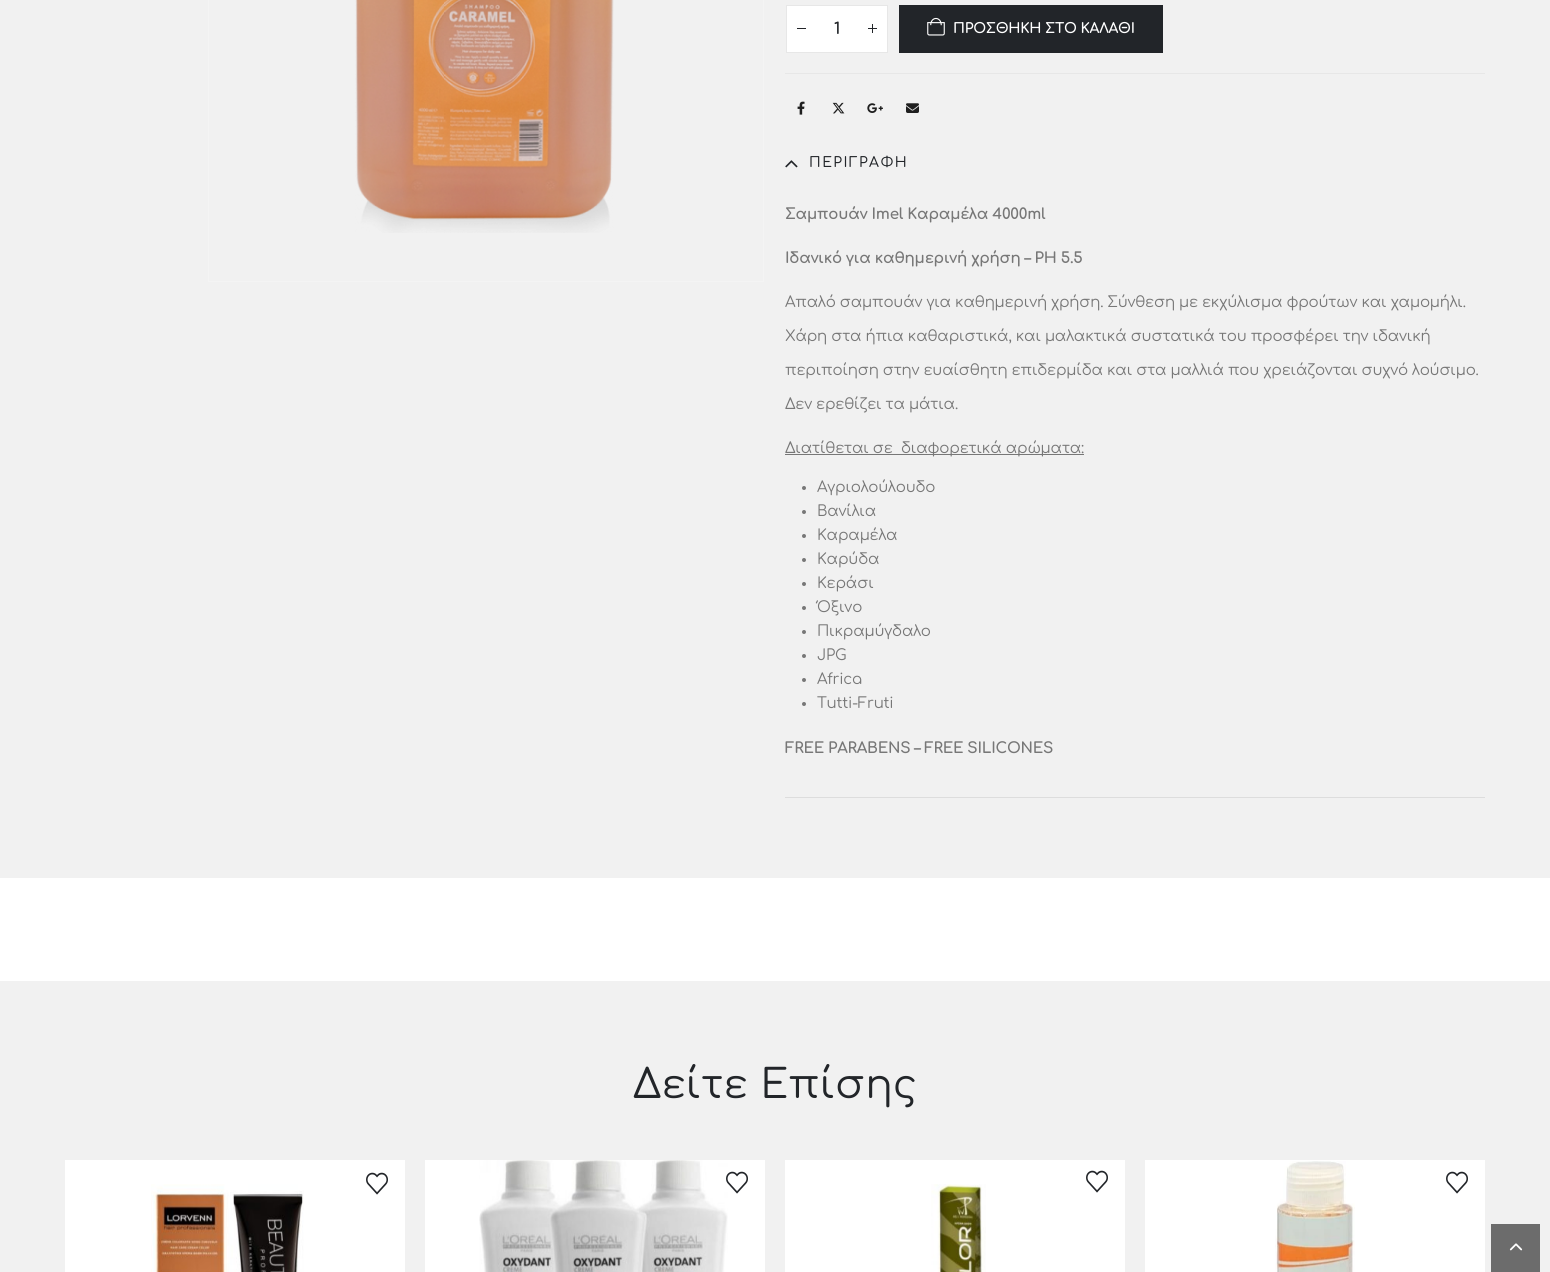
import math
import cairo

surface = cairo.ImageSurface(cairo.FORMAT_RGB24, 1550, 1272)
c = cairo.Context(surface)
options = cairo.FontOptions()
options.set_hint_metrics(cairo.HINT_METRICS_OFF)
options.set_hint_style(cairo.HINT_STYLE_NONE)
c.set_font_options(options)
c.set_miter_limit(4)
def C(code):
 c.set_source_rgb(*(v / 255 for v in bytes.fromhex(code[-6:])))
def F(family, size, italic, bold):
 c.select_font_face(family, cairo.FONT_SLANT_ITALIC if italic else cairo.FONT_SLANT_NORMAL, cairo.FONT_WEIGHT_BOLD if bold else cairo.FONT_WEIGHT_NORMAL)
 c.set_font_size(size)
def T(x, y, s):
 c.move_to(x, y)
 c.show_text(s)
def L(x, y, s, letter, word):
 c.move_to(x, y)
 for ch in s:
  c.show_text(ch)
  c.rel_move_to(letter + word * (ch == ' '), 0)
def R(x, y, w, h):
 c.rectangle(x, y, w, h)
 c.fill()
def I(path, x, y, w, h):
 c.save()
 c.set_source_surface(cairo.ImageSurface.create_from_png(path), x, y)
 c.rectangle(x, y, w, h)
 c.fill()
 c.restore()
C('ffffff')
c.paint()
C('f1f1f1')
R(0,0,1550,878)
c.rectangle(208.5,-.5,555,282)
C('f4f4f4')
c.set_line_width(1)
c.stroke()
I('1.png',355,0,259,233)
C('e7e7e7')
R(785,73,700,1)
R(786,5,102,1)
R(786,52,73,1)
R(786,5,1,48)
C('ffffff')
R(787,6,100,46)
C('222529')
R(797,28,9,1)
F('Comfortaa',16,0,1)
T(834,34,'1')
C('e7e7e7')
R(887,5,1,48)
R(858,52,30,1)
C('222529')
R(868,28,9,1)
R(872,24,1,9)
R(899,5,264,48)
I('2.png',927,17,18,19)
F('Comfortaa',14,0,1)
C('ffffff')
L(953,33,'ΠΡΟΣΘΗΚΗ ΣΤΟ ΚΑΛΑΘΙ',-.25,0)
I('3.png',797,101,8,14)
I('4.png',832,102,13,12)
I('5.png',867,103,16,10)
I('6.png',906,103,13,10)
I('7.png',785,160,13,8)
F('Comfortaa Medium',14,0,0)
C('222529')
L(809,167,'ΠΕΡΙΓΡΑΦΗ',1.5,0)
C('dddddd')
R(785,797,700,1)
F('Comfortaa',15,0,1)
C('777777')
L(785,219,'Σαμπουάν Imel Καραμέλα 4000ml',-.23,0)
L(785,263,'Ιδανικό για καθημερινή χρήση – PH 5.5',-.23,0)
F('Comfortaa',15,0,0)
L(785,307,'Απαλό σαμπουάν για καθημερινή χρήση. Σύνθεση με εκχύλισμα φρούτων και χαμομήλι.',-.23,0)
L(785,341,'Χάρη στα ήπια καθαριστικά, και μαλακτικά συστατικά του προσφέρει την ιδανική',-.23,0)
L(785,375,'περιποίηση στην ευαίσθητη επιδερμίδα και στα μαλλιά που χρειάζονται συχνό λούσιμο.',-.23,0)
L(785,409,'Δεν ερεθίζει τα μάτια.',-.23,0)
R(785,454,299,1)
L(785,453,'Διατίθεται σε  διαφορετικά αρώματα:',-.23,0)
c.new_path()
c.arc(804,488,2,0,2 * math.pi)
c.fill()
L(817,492,'Αγριολούλουδο',-.23,0)
c.new_path()
c.arc(804,512,2,0,2 * math.pi)
c.fill()
L(817,516,'Βανίλια',-.23,0)
c.new_path()
c.arc(804,536,2,0,2 * math.pi)
c.fill()
L(817,540,'Καραμέλα',-.23,0)
c.new_path()
c.arc(804,560,2,0,2 * math.pi)
c.fill()
L(817,564,'Καρύδα',-.23,0)
c.new_path()
c.arc(804,584,2,0,2 * math.pi)
c.fill()
L(817,588,'Κεράσι',-.23,0)
c.new_path()
c.arc(804,608,2,0,2 * math.pi)
c.fill()
L(817,612,'Όξινο',-.23,0)
c.new_path()
c.arc(804,632,2,0,2 * math.pi)
c.fill()
L(817,636,'Πικραμύγδαλο',-.23,0)
c.new_path()
c.arc(804,656,2,0,2 * math.pi)
c.fill()
L(817,660,'JPG',-.23,0)
c.new_path()
c.arc(804,680,2,0,2 * math.pi)
c.fill()
L(817,684,'Africa',-.23,0)
c.new_path()
c.arc(804,704,2,0,2 * math.pi)
c.fill()
L(817,708,'Tutti-Fruti',-.23,0)
F('Comfortaa',15,0,1)
L(785,753,'FREE PARABENS – FREE SILICONES',-.23,0)
C('f1f1f1')
R(0,981,1550,291)
F('Comfortaa',40,0,0)
C('222529')
L(633,1098,'Δείτε Επίσης',.4,0)
C('ffffff')
R(65,1160,340,112)
I('8.png',151,1184,153,88)
I('9.png',366,1172,22,23)
R(425,1160,340,112)
I('10.png',479,1160,249,112)
I('11.png',726,1171,22,23)
R(785,1160,340,112)
I('12.png',931,1184,55,88)
I('9.png',1086,1170,22,23)
R(1145,1160,340,112)
I('13.png',1275,1161,80,111)
I('9.png',1446,1171,22,23)
C('6c6c6c')
R(1491,1224,49,48)
I('14.png',1509,1243,14,8)
surface.write_to_png('o.png')
